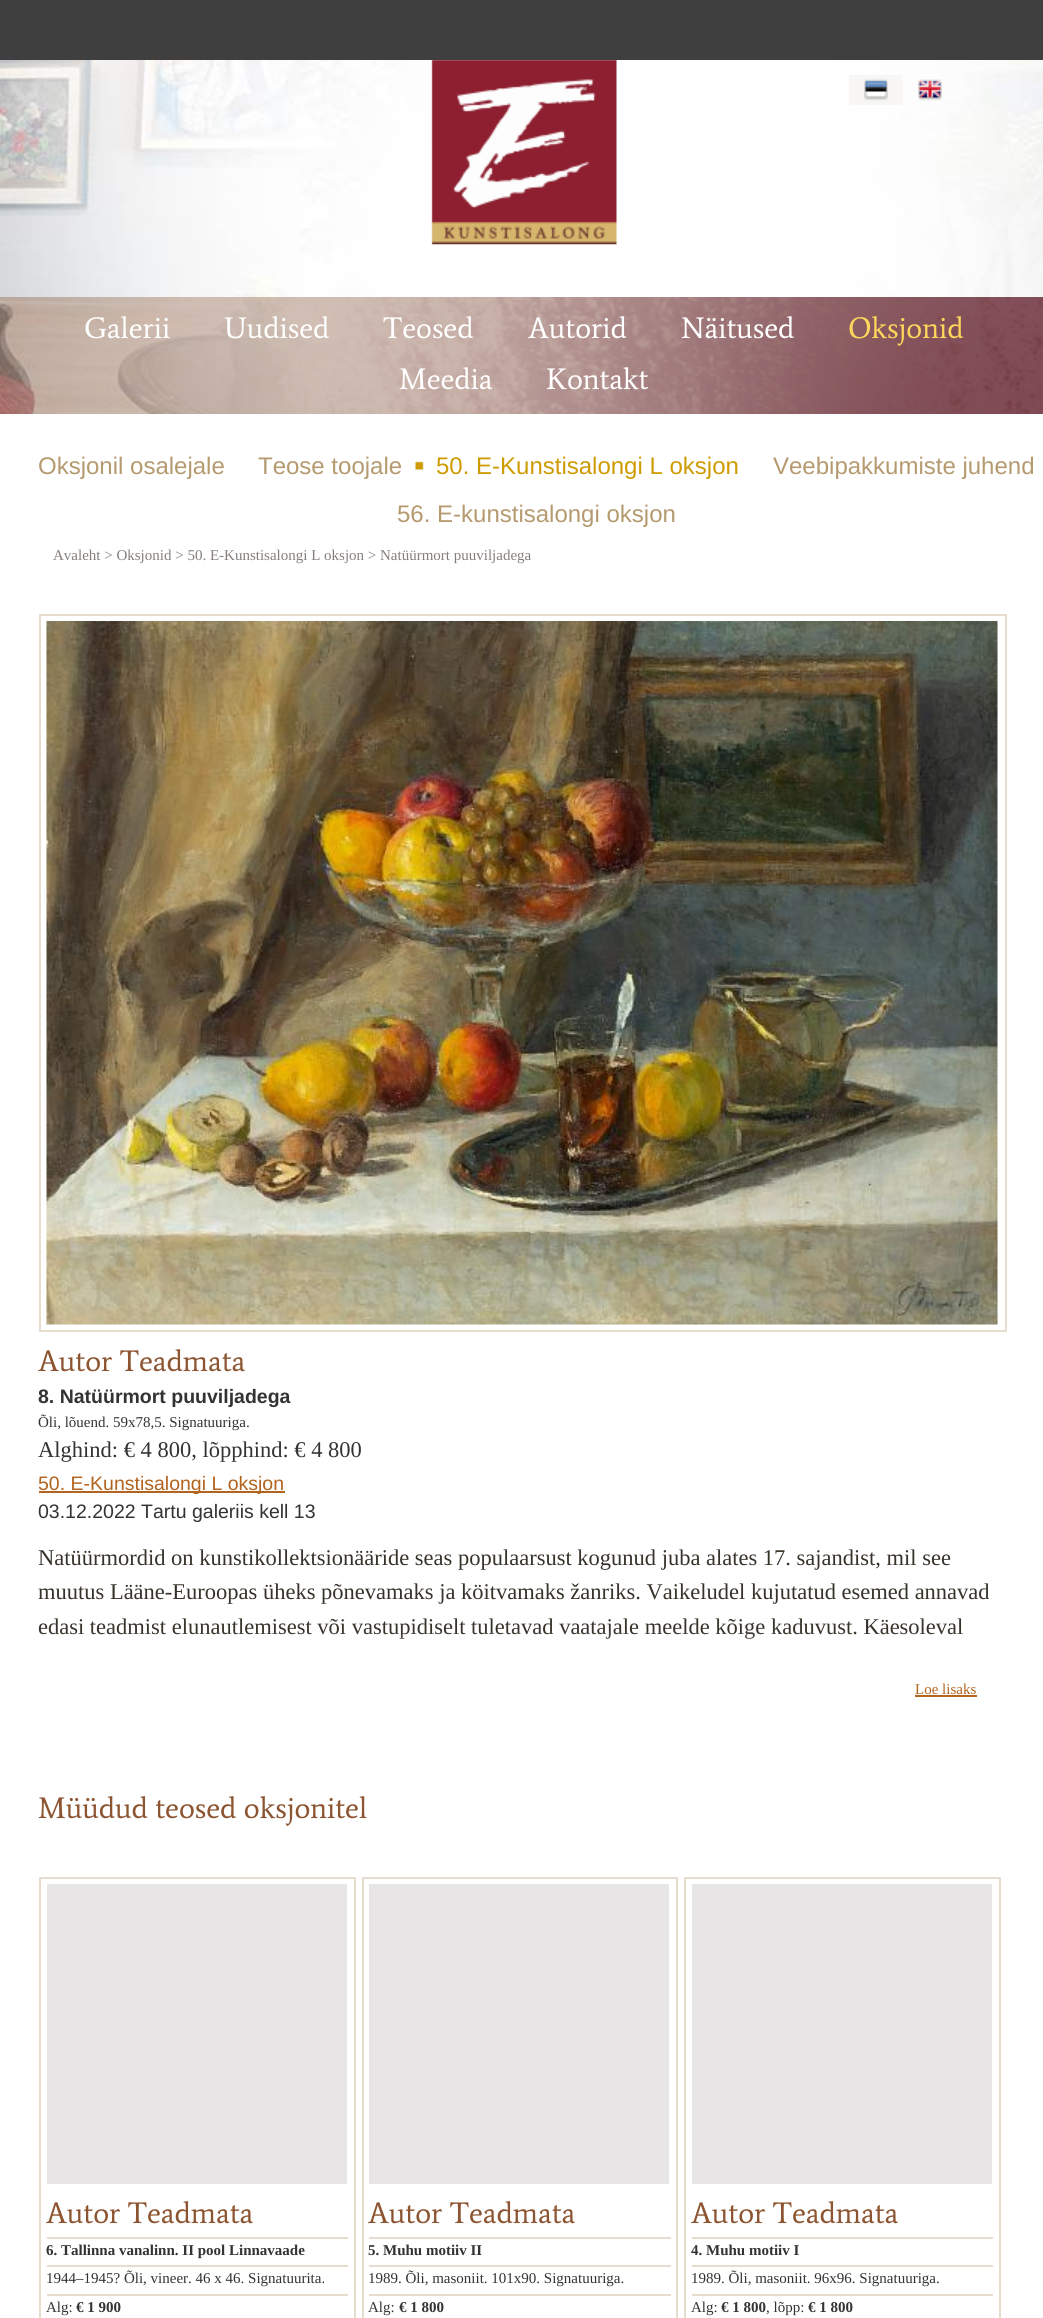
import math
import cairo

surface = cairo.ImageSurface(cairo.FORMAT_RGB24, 1043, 2318)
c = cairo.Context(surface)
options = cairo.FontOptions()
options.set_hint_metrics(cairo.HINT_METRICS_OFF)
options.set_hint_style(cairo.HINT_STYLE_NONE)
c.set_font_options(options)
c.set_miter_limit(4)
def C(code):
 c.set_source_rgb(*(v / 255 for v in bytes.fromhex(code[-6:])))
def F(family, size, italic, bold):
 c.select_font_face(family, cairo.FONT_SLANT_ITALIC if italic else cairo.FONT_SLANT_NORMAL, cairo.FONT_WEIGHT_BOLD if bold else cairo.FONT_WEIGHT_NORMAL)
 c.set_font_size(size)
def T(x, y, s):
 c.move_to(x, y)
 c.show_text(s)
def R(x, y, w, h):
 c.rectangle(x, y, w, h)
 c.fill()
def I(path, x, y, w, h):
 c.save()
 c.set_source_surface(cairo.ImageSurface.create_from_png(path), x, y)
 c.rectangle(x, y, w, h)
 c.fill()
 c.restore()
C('3f3f3f')
c.paint()
C('ffffff')
R(0,414,1043,1904)
I('1.png',0,60,1043,354)
C('f8f7f6')
R(849,75,54,30)
I('2.png',864,79,24,22)
I('3.png',918,79,24,22)
I('4.png',0,297,1043,117)
F('Average',30,0,0)
C('ffffff')
T(84,338,'Galerii')
T(224,338,'Uudised')
T(383,338,'Teosed')
T(528,338,'Autorid')
T(681,338,'Näitused')
C('fed65b')
T(848,338,'Oksjonid')
C('ffffff')
T(399,389,'Meedia')
T(546,389,'Kontakt')
F('Liberation Sans',24,0,0)
C('b59a6f')
T(38,474,'Oksjonil osalejale')
T(258,474,'Teose toojale')
I('5.png',415,461,9,9)
C('ce9c02')
T(436,474,'50. E-Kunstisalongi L oksjon')
C('b59a6f')
T(773,474,'Veebipakkumiste juhend')
T(397,522,'56. E-kunstisalongi oksjon')
F('Liberation Serif',15,0,0)
C('857f7c')
T(53,560,'Avaleht > Oksjonid > 50. E-Kunstisalongi L oksjon > Natüürmort puuviljadega')
c.rectangle(40,615,966,716)
C('e7ddcf')
c.stroke()
I('6.png',46,621,952,704)
F('Average',30,0,0)
C('8c5430')
T(38,1371,'Autor Teadmata')
F('Liberation Sans',19.5,0,1)
C('333333')
T(38,1403,'8. Natüürmort puuviljadega')
F('Liberation Serif',15,0,0)
T(38,1427,'Õli, lõuend. 59x78,5. Signatuuriga.')
F('Liberation Serif',22.5,0,0)
T(38,1457,'Alghind: € 4 800, lõpphind: € 4 800')
C('b2631e')
R(39,1491,246,2)
F('Liberation Sans',19.5,0,0)
T(38,1490,'50. E-Kunstisalongi L oksjon')
C('333333')
T(38,1518,'03.12.2022 Tartu galeriis kell 13')
F('Liberation Serif',22.5,0,0)
C('37332a')
T(38,1565,'Natüürmordid on kunstikollektsionääride seas populaarsust kogunud juba alates 17. sajandist, mil see')
T(38,1599,'muutus Lääne-Euroopas üheks põnevamaks ja köitvamaks žanriks. Vaikeludel kujutatud esemed annavad')
T(38,1634,'edasi teadmist elunautlemisest või vastupidiselt tuletavad vaatajale meelde kõige kaduvust. Käesoleval')
I('7.png',39,1632,962,65)
F('Liberation Serif',15,0,0)
C('b2631e')
T(915,1694,'Loe lisaks')
R(915,1695,62,2)
F('Average',30,0,0)
C('8c5430')
T(38,1818,'Müüdud teosed oksjonitel')
c.rectangle(40,1878,315,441)
C('e7ddcf')
c.stroke()
C('e7e5e5')
R(47,1884,300,300)
C('e7ddcf')
R(47,2237,301,2)
C('8c5430')
T(46,2223,'Autor Teadmata')
C('e7ddcf')
R(47,2265,301,2)
F('Liberation Serif',15,0,1)
C('333333')
T(46,2255,'6. Tallinna vanalinn. II pool Linnavaade')
C('e7ddcf')
R(47,2294,301,2)
F('Liberation Serif',15,0,0)
C('333333')
T(46,2283,'1944–1945? Õli, vineer. 46 x 46. Signatuurita.')
T(46,2312,'Alg:')
F('Liberation Serif',15,0,1)
T(76,2312,'€ 1 900')
c.rectangle(363,1878,314,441)
C('e7ddcf')
c.stroke()
C('e7e5e5')
R(369,1884,300,300)
C('e7ddcf')
R(369,2237,302,2)
F('Average',30,0,0)
C('8c5430')
T(368,2223,'Autor Teadmata')
C('e7ddcf')
R(369,2265,302,2)
F('Liberation Serif',15,0,1)
C('333333')
T(368,2255,'5. Muhu motiiv II')
C('e7ddcf')
R(369,2294,302,2)
F('Liberation Serif',15,0,0)
C('333333')
T(368,2283,'1989. Õli, masoniit. 101x90. Signatuuriga.')
T(368,2312,'Alg:')
F('Liberation Serif',15,0,1)
T(399,2312,'€ 1 800')
c.rectangle(685,1878,315,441)
C('e7ddcf')
c.stroke()
C('e7e5e5')
R(692,1884,300,300)
C('e7ddcf')
R(692,2237,301,2)
F('Average',30,0,0)
C('8c5430')
T(691,2223,'Autor Teadmata')
C('e7ddcf')
R(692,2265,301,2)
F('Liberation Serif',15,0,1)
C('333333')
T(691,2255,'4. Muhu motiiv I')
C('e7ddcf')
R(692,2294,301,2)
F('Liberation Serif',15,0,0)
C('333333')
T(691,2283,'1989. Õli, masoniit. 96x96. Signatuuriga.')
T(691,2312,'Alg:')
F('Liberation Serif',15,0,1)
T(721,2312,'€ 1 800')
F('Liberation Serif',15,0,0)
T(766,2312,', lõpp:')
F('Liberation Serif',15,0,1)
T(808,2312,'€ 1 800')
surface.write_to_png('o.png')
